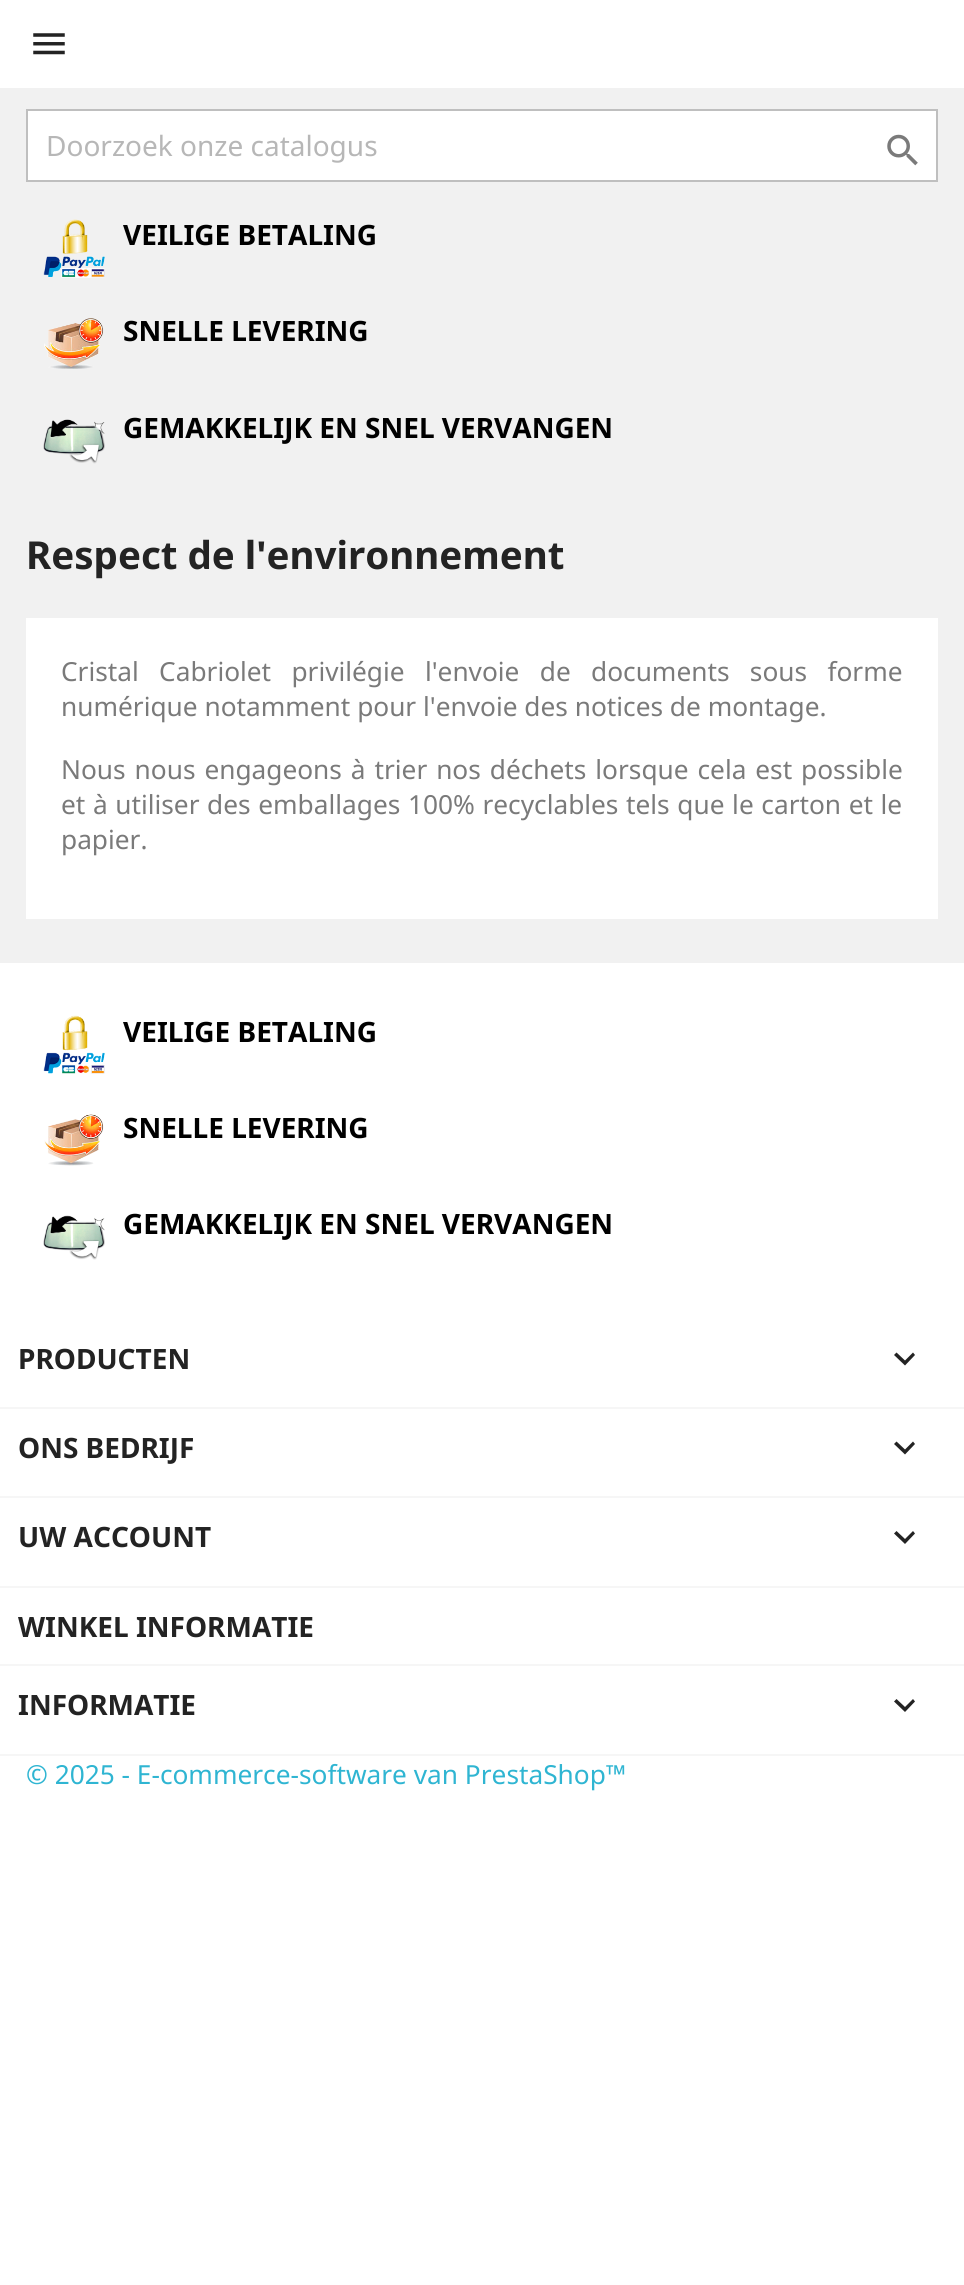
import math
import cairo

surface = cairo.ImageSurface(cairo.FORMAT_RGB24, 964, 2285)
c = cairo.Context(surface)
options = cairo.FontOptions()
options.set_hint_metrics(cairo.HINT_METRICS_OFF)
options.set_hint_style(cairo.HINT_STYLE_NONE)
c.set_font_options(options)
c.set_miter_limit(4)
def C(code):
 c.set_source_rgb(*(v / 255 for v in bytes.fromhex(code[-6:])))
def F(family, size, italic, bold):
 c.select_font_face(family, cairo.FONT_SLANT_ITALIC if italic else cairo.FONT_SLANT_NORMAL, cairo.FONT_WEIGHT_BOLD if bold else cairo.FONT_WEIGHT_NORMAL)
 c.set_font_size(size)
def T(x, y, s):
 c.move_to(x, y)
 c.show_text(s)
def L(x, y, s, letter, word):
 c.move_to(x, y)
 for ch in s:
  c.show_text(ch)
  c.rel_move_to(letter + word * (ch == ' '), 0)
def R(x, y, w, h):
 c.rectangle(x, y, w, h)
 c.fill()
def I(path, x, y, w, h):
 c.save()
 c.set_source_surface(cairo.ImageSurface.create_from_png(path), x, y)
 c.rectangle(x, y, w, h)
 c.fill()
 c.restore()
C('ffffff')
c.paint()
C('f1f1f1')
R(0,88,964,875)
I('1.png',33,33,32,22)
C('ffffff')
c.rectangle(27,110,910,71)
c.fill_preserve()
C('bfbfbf')
c.stroke()
F('Noto Sans',28,0,0)
C('b7b7b7')
T(46,156,'Doorzoek onze catalogus')
I('2.png',887,134,31,32)
I('3.png',43,219,62,59)
F('Noto Sans',28,0,1)
C('000000')
T(123,245,'VEILIGE BETALING')
I('4.png',44,318,60,51)
T(123,341,'SNELLE LEVERING')
I('5.png',43,419,62,45)
T(123,438,'GEMAKKELIJK EN SNEL VERVANGEN')
F('Noto Sans',38.5,0,1)
C('232323')
T(26,569,'Respect de l\'environnement')
C('ffffff')
R(26,618,912,301)
F('Noto Sans',26.25,0,0)
C('7a7a7a')
L(61,681,'Cristal Cabriolet privilégie l\'envoie de documents sous forme',0,13.5)
T(61,716,'numérique notamment pour l\'envoie des notices de montage.')
L(61,779,'Nous nous engageons à trier nos déchets lorsque cela est possible',0,2.1)
L(61,814,'et à utiliser des emballages 100% recyclables tels que le carton et le',0,.8)
T(61,849,'papier.')
I('6.png',43,1015,62,59)
F('Noto Sans',28,0,1)
C('000000')
T(123,1042,'VEILIGE BETALING')
I('7.png',44,1114,60,52)
T(123,1138,'SNELLE LEVERING')
I('8.png',43,1215,62,45)
T(123,1234,'GEMAKKELIJK EN SNEL VERVANGEN')
C('f6f6f6')
R(0,1407,964,2)
C('232323')
T(18,1369,'PRODUCTEN')
c.new_path()
c.move_to(896.5,1352.5)
c.line_to(905,1360.5)
c.line_to(913,1352.5)
c.line_to(915,1355)
c.line_to(905,1365.5)
c.line_to(894,1355)
c.close_path()
c.fill()
C('f6f6f6')
R(0,1496,964,2)
C('232323')
T(18,1458,'ONS BEDRIJF')
c.new_path()
c.move_to(896.5,1441.5)
c.line_to(905,1449.5)
c.line_to(913,1441.5)
c.line_to(915,1444)
c.line_to(905,1454.5)
c.line_to(894,1444)
c.close_path()
c.fill()
C('f6f6f6')
R(0,1586,964,2)
C('232323')
T(18,1547,'UW ACCOUNT')
c.new_path()
c.move_to(896.5,1531)
c.line_to(905,1539)
c.line_to(913,1531)
c.line_to(915,1533.5)
c.line_to(905,1544)
c.line_to(894,1533.5)
c.close_path()
c.fill()
C('f6f6f6')
R(0,1664,964,2)
C('232323')
T(18,1637,'WINKEL INFORMATIE')
C('f6f6f6')
R(0,1754,964,2)
C('232323')
T(18,1715,'INFORMATIE')
c.new_path()
c.move_to(896.5,1699)
c.line_to(905,1707)
c.line_to(913,1699)
c.line_to(915,1701.5)
c.line_to(905,1712)
c.line_to(894,1701.5)
c.close_path()
c.fill()
F('Noto Sans',26.25,0,0)
C('2fb5d2')
T(26,1784,'© 2025 - E-commerce-software van PrestaShop™')
surface.write_to_png('o.png')
